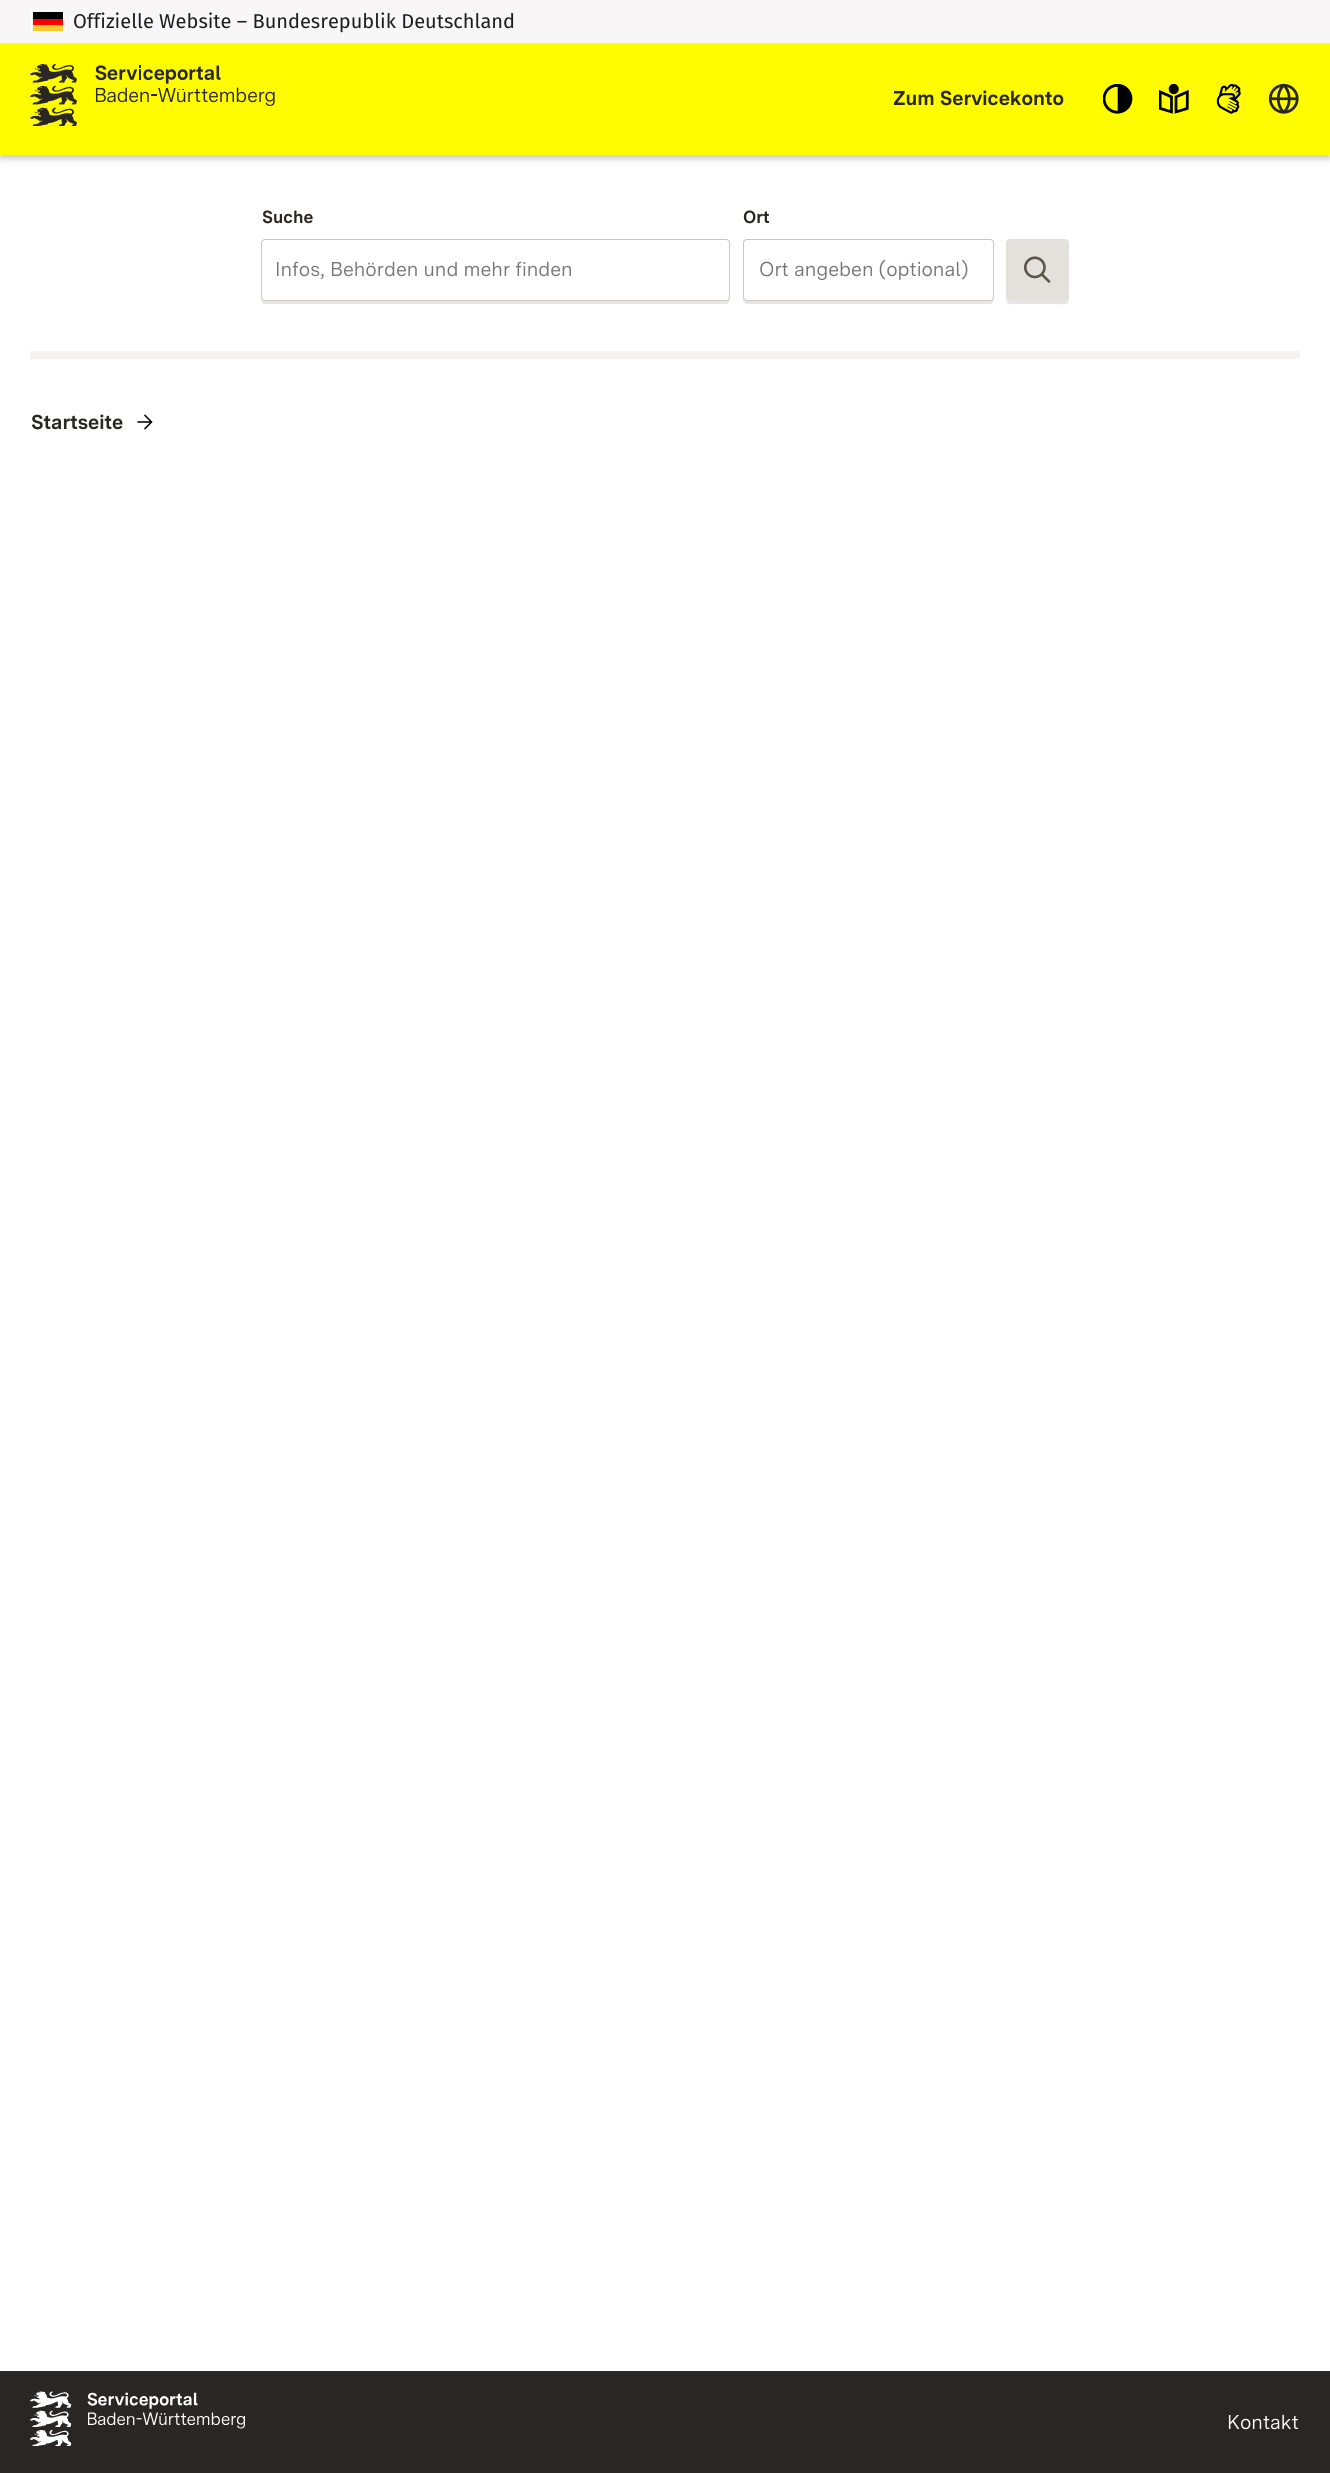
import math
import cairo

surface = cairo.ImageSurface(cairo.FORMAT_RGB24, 1330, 2473)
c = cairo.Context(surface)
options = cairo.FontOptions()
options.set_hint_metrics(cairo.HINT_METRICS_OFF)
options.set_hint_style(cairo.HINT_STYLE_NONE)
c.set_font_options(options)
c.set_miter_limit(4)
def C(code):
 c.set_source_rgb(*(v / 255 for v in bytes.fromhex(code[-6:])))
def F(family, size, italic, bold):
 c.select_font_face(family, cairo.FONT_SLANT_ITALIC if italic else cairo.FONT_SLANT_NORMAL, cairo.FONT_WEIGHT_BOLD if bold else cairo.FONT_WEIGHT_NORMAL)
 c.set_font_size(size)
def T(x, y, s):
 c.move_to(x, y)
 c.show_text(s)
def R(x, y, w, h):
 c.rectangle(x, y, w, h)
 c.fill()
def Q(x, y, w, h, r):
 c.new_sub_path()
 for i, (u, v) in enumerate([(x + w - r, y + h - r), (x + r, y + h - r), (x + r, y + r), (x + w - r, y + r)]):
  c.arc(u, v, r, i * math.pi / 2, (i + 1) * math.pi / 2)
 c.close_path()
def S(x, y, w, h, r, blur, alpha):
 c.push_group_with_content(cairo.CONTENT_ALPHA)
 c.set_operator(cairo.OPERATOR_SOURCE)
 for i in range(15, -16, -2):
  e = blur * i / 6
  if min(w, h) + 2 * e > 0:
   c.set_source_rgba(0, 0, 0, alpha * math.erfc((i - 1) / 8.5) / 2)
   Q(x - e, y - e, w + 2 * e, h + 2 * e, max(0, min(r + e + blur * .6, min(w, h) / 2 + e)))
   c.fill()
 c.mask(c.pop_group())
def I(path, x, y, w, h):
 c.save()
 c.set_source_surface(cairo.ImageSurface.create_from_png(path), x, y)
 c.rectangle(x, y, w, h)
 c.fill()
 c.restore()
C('ffffff')
c.paint()
C('000000')
S(0,4,1330,155,0,3,.2)
C('fffc00')
R(0,43,1330,112)
C('f8f6f6')
R(0,0,1330,43)
c.rectangle(31.5,10.5,32,22)
C('ffffff')
c.set_line_width(1)
c.stroke()
C('000000')
R(33,12,30,7)
C('ff0000')
R(33,19,30,6)
C('faca2c')
R(33,25,30,6)
F('Fira Sans',20,0,0)
C('191e21')
T(73,28,'Offizielle Website – Bundesrepublik Deutschland')
I('1.png',30,64,245,62)
F('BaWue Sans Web',20,0,1)
C('2a2623')
T(893,105,'Zum Servicekonto')
I('2.png',1103,84,30,30)
I('3.png',1159,84,30,30)
I('4.png',1216,84,25,30)
I('5.png',1268,83,31,31)
C('f4f3f1')
R(30,351,1270,8)
F('BaWue Sans Web',17.5,0,1)
C('2a2623')
T(262,223,'Suche')
C('e6e6e6')
c.new_path()
c.move_to(261,244)
c.line_to(261,300)
c.curve_to(261,302,263,304,265,304)
c.line_to(726,304)
c.curve_to(728,304,730,302,730,300)
c.line_to(730,298)
c.curve_to(730,300,728,301,726,301)
c.line_to(265,301)
c.curve_to(263,301,261,300,261,298)
c.close_path()
c.fill()
C('ffffff')
Q(261.5,239.5,468,61,3.5)
c.fill_preserve()
C('cbc6bd')
c.stroke()
F('BaWue Sans Web',20,0,0)
C('757575')
T(275,276,'Infos, Behörden und mehr finden')
F('BaWue Sans Web',17.5,0,1)
C('2a2623')
T(743,223,'Ort')
C('e6e6e6')
c.new_path()
c.move_to(743,299)
c.line_to(743,300)
c.curve_to(743,302,745,304,747,304)
c.line_to(990,304)
c.curve_to(992,304,994,302,994,300)
c.line_to(994,244)
c.line_to(994,298)
c.curve_to(994,300,992,301,990,301)
c.line_to(746,301)
c.curve_to(745,301,744,300,743,299)
c.close_path()
c.fill()
C('ffffff')
Q(743.5,239.5,250,61,3.5)
c.fill_preserve()
C('cbc6bd')
c.stroke()
F('BaWue Sans Web',20,0,0)
C('757575')
T(759,276,'Ort angeben (optional)')
C('e6e6e6')
c.new_path()
c.move_to(1006,244)
c.line_to(1006,300)
c.curve_to(1006,306,1017,304,1019,304)
c.line_to(1056,304)
c.curve_to(1058,304,1069,306,1069,300)
c.line_to(1069,244)
c.line_to(1069,298)
c.curve_to(1069,300,1067,301,1065,301)
c.line_to(1010,301)
c.curve_to(1008,301,1006,300,1006,298)
c.close_path()
c.fill()
C('e4e1dc')
Q(1007.5,240.5,60,59,2.5)
c.fill_preserve()
c.set_line_width(3)
c.stroke()
I('6.png',1024,256,27,27)
F('BaWue Sans Web',20,0,1)
C('2a2623')
T(31,429,'Startseite')
I('7.png',137,414,16,16)
R(0,2371,1330,102)
I('8.png',30,2391,215,55)
F('BaWue Sans Web',20,0,0)
C('ffffff')
T(1227,2429,'Kontakt')
surface.write_to_png('o.png')
